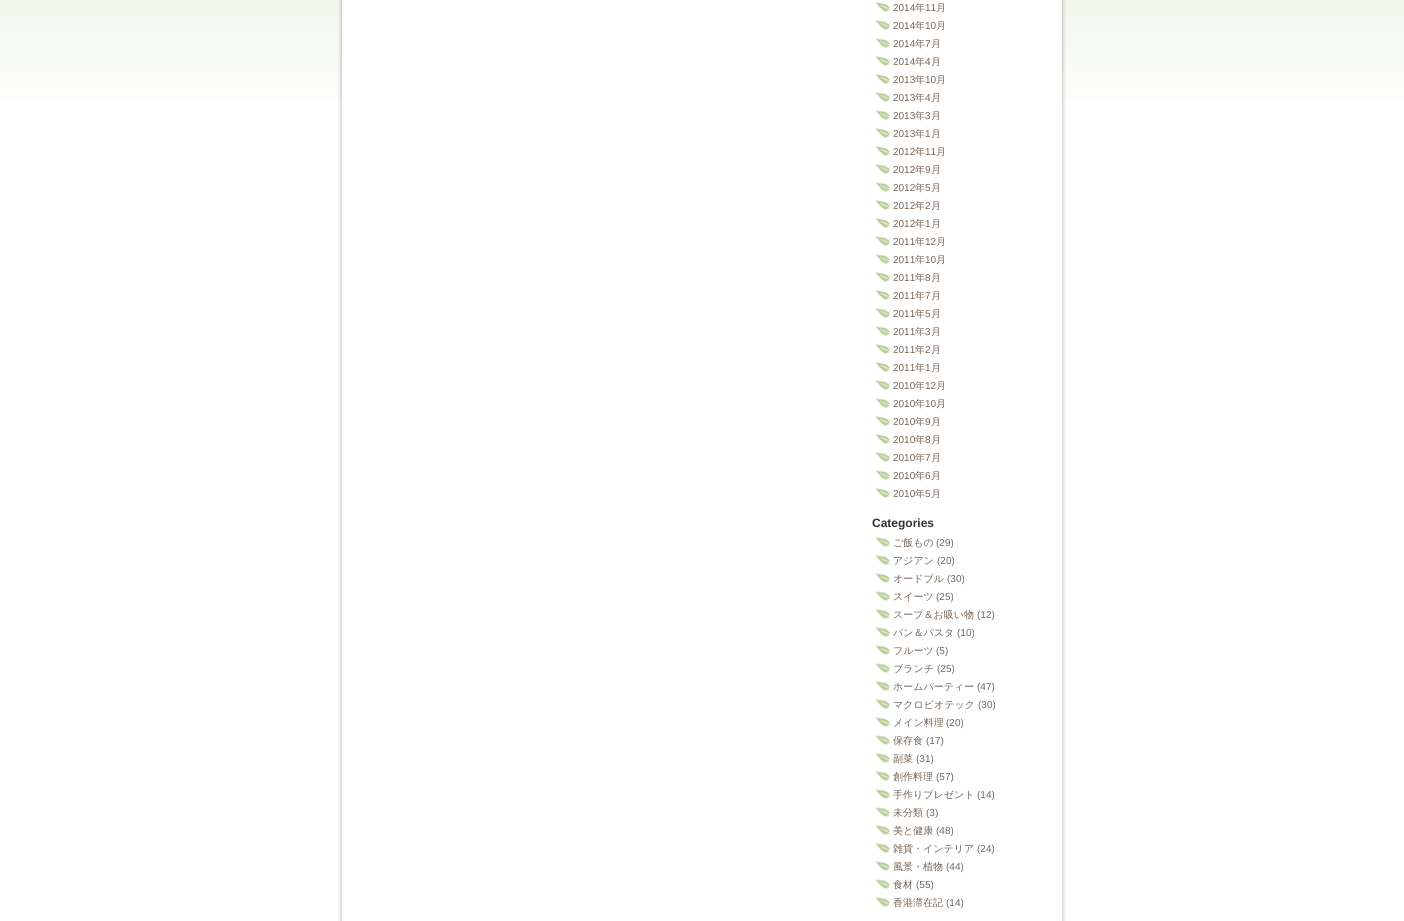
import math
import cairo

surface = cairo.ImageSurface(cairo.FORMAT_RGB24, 1404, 921)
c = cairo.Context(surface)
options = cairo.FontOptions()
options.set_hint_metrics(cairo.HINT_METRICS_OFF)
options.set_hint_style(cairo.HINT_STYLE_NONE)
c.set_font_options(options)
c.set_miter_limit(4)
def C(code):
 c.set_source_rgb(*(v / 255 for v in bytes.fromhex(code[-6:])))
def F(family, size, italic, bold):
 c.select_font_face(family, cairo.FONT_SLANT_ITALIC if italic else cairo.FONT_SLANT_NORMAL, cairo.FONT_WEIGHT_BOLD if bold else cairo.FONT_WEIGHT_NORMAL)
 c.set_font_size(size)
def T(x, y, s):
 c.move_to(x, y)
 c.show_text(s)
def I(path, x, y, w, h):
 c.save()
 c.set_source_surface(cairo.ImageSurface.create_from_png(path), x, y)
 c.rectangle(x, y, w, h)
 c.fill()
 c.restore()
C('ffffff')
c.paint()
I('1.png',0,0,1404,101)
I('2.png',338,0,728,921)
I('3.png',875,2,15,10)
F('Liberation Sans',10,0,0)
C('736357')
T(893,11,'2014')
F('WenQuanYi Zen Hei Medium',10,0,0)
T(915,11,'年')
F('Liberation Sans',10,0,0)
T(925,11,'11')
F('WenQuanYi Zen Hei Medium',10,0,0)
T(936,11,'月')
I('3.png',875,20,15,10)
F('Liberation Sans',10,0,0)
T(893,29,'2014')
F('WenQuanYi Zen Hei Medium',10,0,0)
T(915,29,'年')
F('Liberation Sans',10,0,0)
T(925,29,'10')
F('WenQuanYi Zen Hei Medium',10,0,0)
T(936,29,'月')
I('3.png',875,38,15,10)
F('Liberation Sans',10,0,0)
T(893,47,'2014')
F('WenQuanYi Zen Hei Medium',10,0,0)
T(915,47,'年')
F('Liberation Sans',10,0,0)
T(925,47,'7')
F('WenQuanYi Zen Hei Medium',10,0,0)
T(931,47,'月')
I('3.png',875,56,15,10)
F('Liberation Sans',10,0,0)
T(893,65,'2014')
F('WenQuanYi Zen Hei Medium',10,0,0)
T(915,65,'年')
F('Liberation Sans',10,0,0)
T(925,65,'4')
F('WenQuanYi Zen Hei Medium',10,0,0)
T(931,65,'月')
I('3.png',875,74,15,10)
F('Liberation Sans',10,0,0)
T(893,83,'2013')
F('WenQuanYi Zen Hei Medium',10,0,0)
T(915,83,'年')
F('Liberation Sans',10,0,0)
T(925,83,'10')
F('WenQuanYi Zen Hei Medium',10,0,0)
T(936,83,'月')
I('3.png',875,92,15,10)
F('Liberation Sans',10,0,0)
T(893,101,'2013')
F('WenQuanYi Zen Hei Medium',10,0,0)
T(915,101,'年')
F('Liberation Sans',10,0,0)
T(925,101,'4')
F('WenQuanYi Zen Hei Medium',10,0,0)
T(931,101,'月')
I('3.png',875,110,15,10)
F('Liberation Sans',10,0,0)
T(893,119,'2013')
F('WenQuanYi Zen Hei Medium',10,0,0)
T(915,119,'年')
F('Liberation Sans',10,0,0)
T(925,119,'3')
F('WenQuanYi Zen Hei Medium',10,0,0)
T(931,119,'月')
I('3.png',875,128,15,10)
F('Liberation Sans',10,0,0)
T(893,137,'2013')
F('WenQuanYi Zen Hei Medium',10,0,0)
T(915,137,'年')
F('Liberation Sans',10,0,0)
T(925,137,'1')
F('WenQuanYi Zen Hei Medium',10,0,0)
T(931,137,'月')
I('3.png',875,146,15,10)
F('Liberation Sans',10,0,0)
T(893,155,'2012')
F('WenQuanYi Zen Hei Medium',10,0,0)
T(915,155,'年')
F('Liberation Sans',10,0,0)
T(925,155,'11')
F('WenQuanYi Zen Hei Medium',10,0,0)
T(936,155,'月')
I('3.png',875,164,15,10)
F('Liberation Sans',10,0,0)
T(893,173,'2012')
F('WenQuanYi Zen Hei Medium',10,0,0)
T(915,173,'年')
F('Liberation Sans',10,0,0)
T(925,173,'9')
F('WenQuanYi Zen Hei Medium',10,0,0)
T(931,173,'月')
I('3.png',875,182,15,10)
F('Liberation Sans',10,0,0)
T(893,191,'2012')
F('WenQuanYi Zen Hei Medium',10,0,0)
T(915,191,'年')
F('Liberation Sans',10,0,0)
T(925,191,'5')
F('WenQuanYi Zen Hei Medium',10,0,0)
T(931,191,'月')
I('3.png',875,200,15,10)
F('Liberation Sans',10,0,0)
T(893,209,'2012')
F('WenQuanYi Zen Hei Medium',10,0,0)
T(915,209,'年')
F('Liberation Sans',10,0,0)
T(925,209,'2')
F('WenQuanYi Zen Hei Medium',10,0,0)
T(931,209,'月')
I('3.png',875,218,15,10)
F('Liberation Sans',10,0,0)
T(893,227,'2012')
F('WenQuanYi Zen Hei Medium',10,0,0)
T(915,227,'年')
F('Liberation Sans',10,0,0)
T(925,227,'1')
F('WenQuanYi Zen Hei Medium',10,0,0)
T(931,227,'月')
I('3.png',875,236,15,10)
F('Liberation Sans',10,0,0)
T(893,245,'2011')
F('WenQuanYi Zen Hei Medium',10,0,0)
T(915,245,'年')
F('Liberation Sans',10,0,0)
T(925,245,'12')
F('WenQuanYi Zen Hei Medium',10,0,0)
T(936,245,'月')
I('3.png',875,254,15,10)
F('Liberation Sans',10,0,0)
T(893,263,'2011')
F('WenQuanYi Zen Hei Medium',10,0,0)
T(915,263,'年')
F('Liberation Sans',10,0,0)
T(925,263,'10')
F('WenQuanYi Zen Hei Medium',10,0,0)
T(936,263,'月')
I('3.png',875,272,15,10)
F('Liberation Sans',10,0,0)
T(893,281,'2011')
F('WenQuanYi Zen Hei Medium',10,0,0)
T(915,281,'年')
F('Liberation Sans',10,0,0)
T(925,281,'8')
F('WenQuanYi Zen Hei Medium',10,0,0)
T(931,281,'月')
I('3.png',875,290,15,10)
F('Liberation Sans',10,0,0)
T(893,299,'2011')
F('WenQuanYi Zen Hei Medium',10,0,0)
T(915,299,'年')
F('Liberation Sans',10,0,0)
T(925,299,'7')
F('WenQuanYi Zen Hei Medium',10,0,0)
T(931,299,'月')
I('3.png',875,308,15,10)
F('Liberation Sans',10,0,0)
T(893,317,'2011')
F('WenQuanYi Zen Hei Medium',10,0,0)
T(915,317,'年')
F('Liberation Sans',10,0,0)
T(925,317,'5')
F('WenQuanYi Zen Hei Medium',10,0,0)
T(931,317,'月')
I('3.png',875,326,15,10)
F('Liberation Sans',10,0,0)
T(893,335,'2011')
F('WenQuanYi Zen Hei Medium',10,0,0)
T(915,335,'年')
F('Liberation Sans',10,0,0)
T(925,335,'3')
F('WenQuanYi Zen Hei Medium',10,0,0)
T(931,335,'月')
I('3.png',875,344,15,10)
F('Liberation Sans',10,0,0)
T(893,353,'2011')
F('WenQuanYi Zen Hei Medium',10,0,0)
T(915,353,'年')
F('Liberation Sans',10,0,0)
T(925,353,'2')
F('WenQuanYi Zen Hei Medium',10,0,0)
T(931,353,'月')
I('3.png',875,362,15,10)
F('Liberation Sans',10,0,0)
T(893,371,'2011')
F('WenQuanYi Zen Hei Medium',10,0,0)
T(915,371,'年')
F('Liberation Sans',10,0,0)
T(925,371,'1')
F('WenQuanYi Zen Hei Medium',10,0,0)
T(931,371,'月')
I('3.png',875,380,15,10)
F('Liberation Sans',10,0,0)
T(893,389,'2010')
F('WenQuanYi Zen Hei Medium',10,0,0)
T(915,389,'年')
F('Liberation Sans',10,0,0)
T(925,389,'12')
F('WenQuanYi Zen Hei Medium',10,0,0)
T(936,389,'月')
I('3.png',875,398,15,10)
F('Liberation Sans',10,0,0)
T(893,407,'2010')
F('WenQuanYi Zen Hei Medium',10,0,0)
T(915,407,'年')
F('Liberation Sans',10,0,0)
T(925,407,'10')
F('WenQuanYi Zen Hei Medium',10,0,0)
T(936,407,'月')
I('3.png',875,416,15,10)
F('Liberation Sans',10,0,0)
T(893,425,'2010')
F('WenQuanYi Zen Hei Medium',10,0,0)
T(915,425,'年')
F('Liberation Sans',10,0,0)
T(925,425,'9')
F('WenQuanYi Zen Hei Medium',10,0,0)
T(931,425,'月')
I('3.png',875,434,15,10)
F('Liberation Sans',10,0,0)
T(893,443,'2010')
F('WenQuanYi Zen Hei Medium',10,0,0)
T(915,443,'年')
F('Liberation Sans',10,0,0)
T(925,443,'8')
F('WenQuanYi Zen Hei Medium',10,0,0)
T(931,443,'月')
I('3.png',875,452,15,10)
F('Liberation Sans',10,0,0)
T(893,461,'2010')
F('WenQuanYi Zen Hei Medium',10,0,0)
T(915,461,'年')
F('Liberation Sans',10,0,0)
T(925,461,'7')
F('WenQuanYi Zen Hei Medium',10,0,0)
T(931,461,'月')
I('3.png',875,470,15,10)
F('Liberation Sans',10,0,0)
T(893,479,'2010')
F('WenQuanYi Zen Hei Medium',10,0,0)
T(915,479,'年')
F('Liberation Sans',10,0,0)
T(925,479,'6')
F('WenQuanYi Zen Hei Medium',10,0,0)
T(931,479,'月')
I('3.png',875,488,15,10)
F('Liberation Sans',10,0,0)
T(893,497,'2010')
F('WenQuanYi Zen Hei Medium',10,0,0)
T(915,497,'年')
F('Liberation Sans',10,0,0)
T(925,497,'5')
F('WenQuanYi Zen Hei Medium',10,0,0)
T(931,497,'月')
F('Liberation Sans',12,0,1)
C('333333')
T(872,527,'Categories')
I('3.png',875,537,15,10)
F('WenQuanYi Zen Hei Medium',10,0,0)
C('736357')
T(893,546,'ご飯もの')
F('Liberation Sans',10,0,0)
C('666666')
T(936,546,'(29)')
I('3.png',875,555,15,10)
F('WenQuanYi Zen Hei Medium',10,0,0)
C('736357')
T(893,564,'アジアン')
F('Liberation Sans',10,0,0)
C('666666')
T(937,564,'(20)')
I('3.png',875,573,15,10)
F('WenQuanYi Zen Hei Medium',10,0,0)
C('736357')
T(893,582,'オードブル')
F('Liberation Sans',10,0,0)
C('666666')
T(947,582,'(30)')
I('3.png',875,591,15,10)
F('WenQuanYi Zen Hei Medium',10,0,0)
C('736357')
T(893,600,'スイーツ')
F('Liberation Sans',10,0,0)
C('666666')
T(936,600,'(25)')
I('3.png',875,609,15,10)
F('WenQuanYi Zen Hei Medium',10,0,0)
C('736357')
T(893,618,'スープ＆お吸い物')
F('Liberation Sans',10,0,0)
C('666666')
T(977,618,'(12)')
I('3.png',875,627,15,10)
F('WenQuanYi Zen Hei Medium',10,0,0)
C('736357')
T(893,636,'パン＆パスタ')
F('Liberation Sans',10,0,0)
C('666666')
T(957,636,'(10)')
I('3.png',875,645,15,10)
F('WenQuanYi Zen Hei Medium',10,0,0)
C('736357')
T(893,654,'フルーツ')
F('Liberation Sans',10,0,0)
C('666666')
T(936,654,'(5)')
I('3.png',875,663,15,10)
F('WenQuanYi Zen Hei Medium',10,0,0)
C('736357')
T(893,672,'ブランチ')
F('Liberation Sans',10,0,0)
C('666666')
T(937,672,'(25)')
I('3.png',875,681,15,10)
F('WenQuanYi Zen Hei Medium',10,0,0)
C('736357')
T(893,690,'ホームパーティー')
F('Liberation Sans',10,0,0)
C('666666')
T(977,690,'(47)')
I('3.png',875,699,15,10)
F('WenQuanYi Zen Hei Medium',10,0,0)
C('736357')
T(893,708,'マクロビオテック')
F('Liberation Sans',10,0,0)
C('666666')
T(978,708,'(30)')
I('3.png',875,717,15,10)
F('WenQuanYi Zen Hei Medium',10,0,0)
C('736357')
T(893,726,'メイン料理')
F('Liberation Sans',10,0,0)
C('666666')
T(946,726,'(20)')
I('3.png',875,735,15,10)
F('WenQuanYi Zen Hei Medium',10,0,0)
C('736357')
T(893,744,'保存食')
F('Liberation Sans',10,0,0)
C('666666')
T(926,744,'(17)')
I('3.png',875,753,15,10)
F('WenQuanYi Zen Hei Medium',10,0,0)
C('736357')
T(893,762,'副菜')
F('Liberation Sans',10,0,0)
C('666666')
T(916,762,'(31)')
I('3.png',875,771,15,10)
F('WenQuanYi Zen Hei Medium',10,0,0)
C('736357')
T(893,780,'創作料理')
F('Liberation Sans',10,0,0)
C('666666')
T(936,780,'(57)')
I('3.png',875,789,15,10)
F('WenQuanYi Zen Hei Medium',10,0,0)
C('736357')
T(893,798,'手作りプレゼント')
F('Liberation Sans',10,0,0)
C('666666')
T(977,798,'(14)')
I('3.png',875,807,15,10)
F('WenQuanYi Zen Hei Medium',10,0,0)
C('736357')
T(893,816,'未分類')
F('Liberation Sans',10,0,0)
C('666666')
T(926,816,'(3)')
I('3.png',875,825,15,10)
F('WenQuanYi Zen Hei Medium',10,0,0)
C('736357')
T(893,834,'美と健康')
F('Liberation Sans',10,0,0)
C('666666')
T(936,834,'(48)')
I('3.png',875,843,15,10)
F('WenQuanYi Zen Hei Medium',10,0,0)
C('736357')
T(893,852,'雑貨・インテリア')
F('Liberation Sans',10,0,0)
C('666666')
T(977,852,'(24)')
I('3.png',875,861,15,10)
F('WenQuanYi Zen Hei Medium',10,0,0)
C('736357')
T(893,870,'風景・植物')
F('Liberation Sans',10,0,0)
C('666666')
T(946,870,'(44)')
I('3.png',875,879,15,10)
F('WenQuanYi Zen Hei Medium',10,0,0)
C('736357')
T(893,888,'食材')
F('Liberation Sans',10,0,0)
C('666666')
T(916,888,'(55)')
I('3.png',875,897,15,10)
F('WenQuanYi Zen Hei Medium',10,0,0)
C('736357')
T(893,906,'香港滞在記')
F('Liberation Sans',10,0,0)
C('666666')
T(946,906,'(14)')
surface.write_to_png('o.png')
